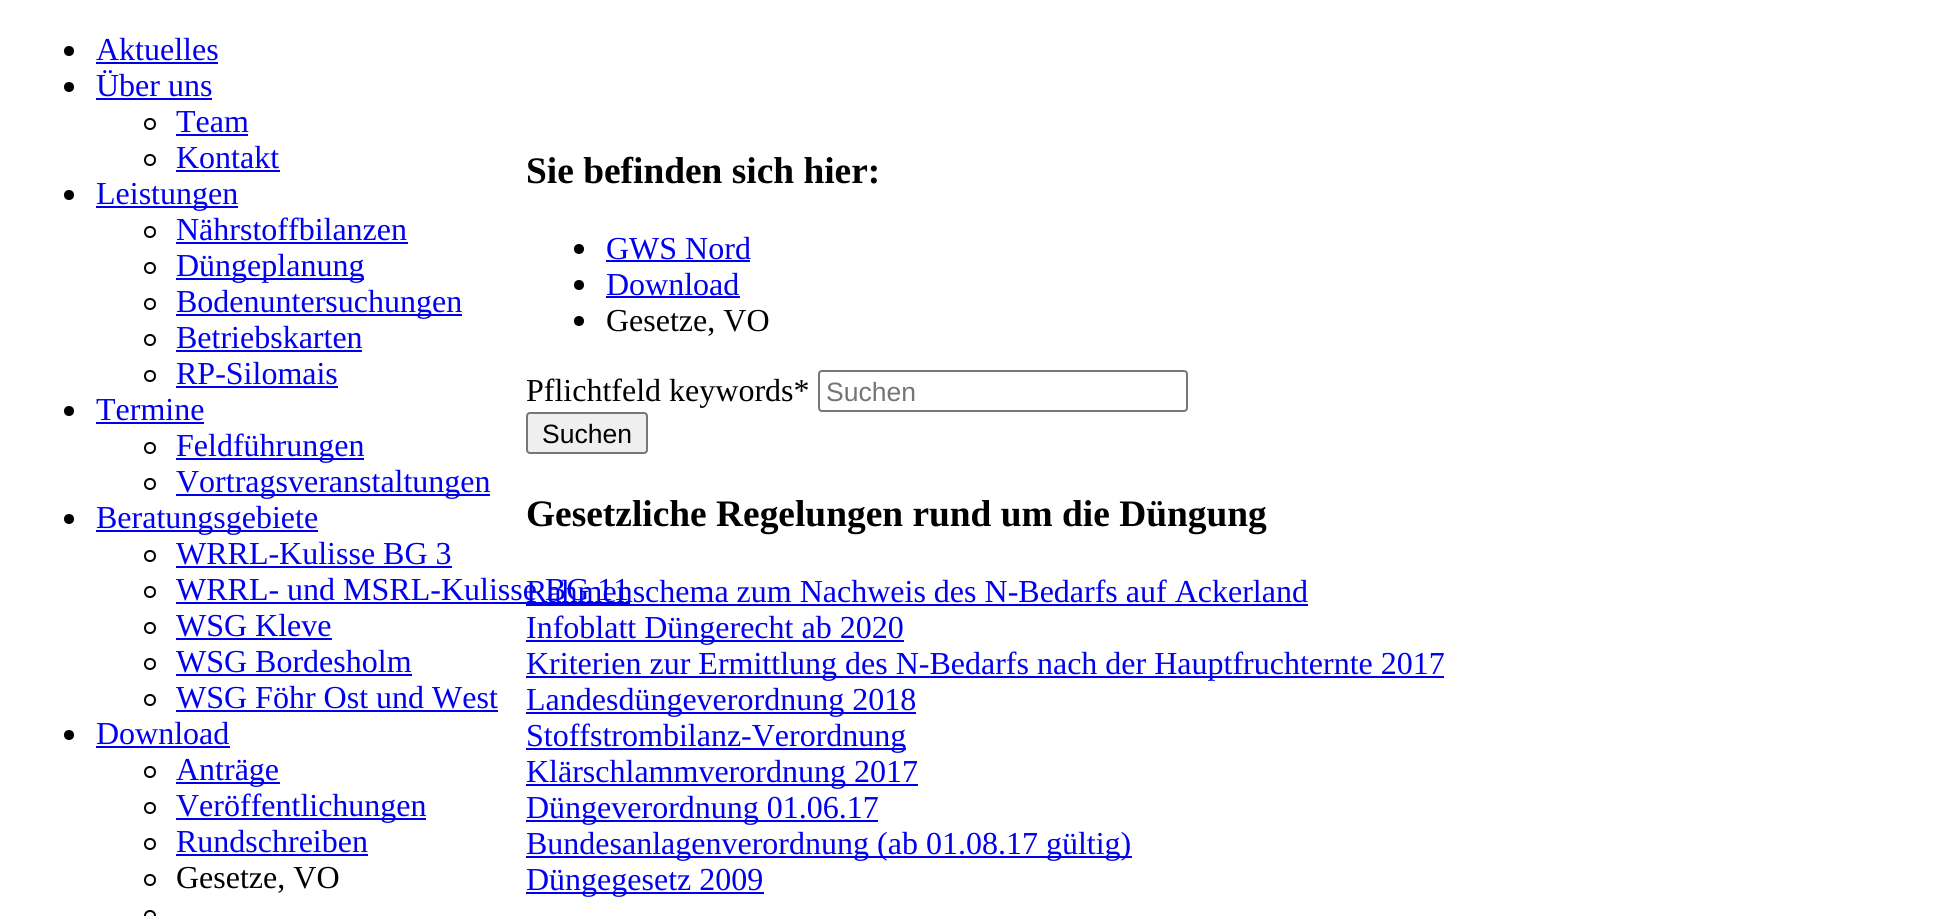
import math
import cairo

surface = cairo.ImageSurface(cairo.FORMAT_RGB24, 1941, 916)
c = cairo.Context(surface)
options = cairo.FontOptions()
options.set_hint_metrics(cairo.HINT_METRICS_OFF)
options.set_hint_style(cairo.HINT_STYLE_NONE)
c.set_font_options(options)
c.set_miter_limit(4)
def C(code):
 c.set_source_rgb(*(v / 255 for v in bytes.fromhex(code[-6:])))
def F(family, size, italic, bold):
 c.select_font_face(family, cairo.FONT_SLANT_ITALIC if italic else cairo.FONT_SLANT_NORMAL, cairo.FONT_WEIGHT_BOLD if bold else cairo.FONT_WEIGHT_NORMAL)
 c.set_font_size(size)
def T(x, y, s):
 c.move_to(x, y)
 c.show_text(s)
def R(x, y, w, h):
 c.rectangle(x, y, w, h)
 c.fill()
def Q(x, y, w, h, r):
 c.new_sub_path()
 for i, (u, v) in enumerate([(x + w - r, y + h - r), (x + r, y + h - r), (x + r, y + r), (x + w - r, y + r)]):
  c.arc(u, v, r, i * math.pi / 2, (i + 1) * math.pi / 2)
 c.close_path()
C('ffffff')
c.paint()
C('000000')
c.arc(69,51,5,0,2 * math.pi)
c.fill()
F('Liberation Serif',32,0,0)
C('0000ee')
T(96,60,'Aktuelles')
R(96,62,122,2)
C('000000')
c.new_path()
c.arc(69,87,5,0,2 * math.pi)
c.fill()
C('0000ee')
T(96,96,'Über uns')
R(96,98,116,2)
c.new_path()
c.arc(150,124,5,0,2 * math.pi)
C('000000')
c.stroke()
C('0000ee')
T(176,132,'Team')
R(176,134,72,2)
c.new_path()
c.arc(150,160,5,0,2 * math.pi)
C('000000')
c.stroke()
C('0000ee')
T(176,168,'Kontakt')
R(176,170,104,2)
C('000000')
c.new_path()
c.arc(69,195,5,0,2 * math.pi)
c.fill()
C('0000ee')
R(96,206,142,2)
T(96,204,'Leistungen')
c.new_path()
c.arc(150,232,5,0,2 * math.pi)
C('000000')
c.stroke()
C('0000ee')
T(176,240,'Nährstoffbilanzen')
R(176,242,232,2)
c.new_path()
c.arc(150,268,5,0,2 * math.pi)
C('000000')
c.stroke()
C('0000ee')
R(176,278,188,2)
T(176,276,'Düngeplanung')
c.new_path()
c.arc(150,304,5,0,2 * math.pi)
C('000000')
c.stroke()
C('0000ee')
R(176,314,286,2)
T(176,312,'Bodenuntersuchungen')
c.new_path()
c.arc(150,340,5,0,2 * math.pi)
C('000000')
c.stroke()
C('0000ee')
T(176,348,'Betriebskarten')
R(176,350,186,2)
c.new_path()
c.arc(150,376,5,0,2 * math.pi)
C('000000')
c.stroke()
C('0000ee')
T(176,384,'RP-Silomais')
R(176,386,162,2)
C('000000')
c.new_path()
c.arc(69,411,5,0,2 * math.pi)
c.fill()
C('0000ee')
T(96,420,'Termine')
R(96,422,108,2)
c.new_path()
c.arc(150,448,5,0,2 * math.pi)
C('000000')
c.stroke()
C('0000ee')
R(176,458,188,2)
T(176,456,'Feldführungen')
c.new_path()
c.arc(150,484,5,0,2 * math.pi)
C('000000')
c.stroke()
C('0000ee')
R(176,494,314,2)
T(176,492,'Vortragsveranstaltungen')
C('000000')
c.new_path()
c.arc(69,519,5,0,2 * math.pi)
c.fill()
C('0000ee')
R(96,530,222,2)
T(96,528,'Beratungsgebiete')
c.new_path()
c.arc(150,556,5,0,2 * math.pi)
C('000000')
c.stroke()
C('0000ee')
T(176,564,'WRRL-Kulisse BG 3')
R(176,566,276,2)
c.new_path()
c.arc(150,592,5,0,2 * math.pi)
C('000000')
c.stroke()
C('0000ee')
T(176,600,'WRRL- und MSRL-Kulisse BG 11')
R(176,602,454,2)
c.new_path()
c.arc(150,628,5,0,2 * math.pi)
C('000000')
c.stroke()
C('0000ee')
T(176,636,'WSG Kleve')
R(176,638,156,2)
c.new_path()
c.arc(150,664,5,0,2 * math.pi)
C('000000')
c.stroke()
C('0000ee')
T(176,672,'WSG Bordesholm')
R(176,674,236,2)
c.new_path()
c.arc(150,700,5,0,2 * math.pi)
C('000000')
c.stroke()
C('0000ee')
T(176,708,'WSG Föhr Ost und West')
R(176,710,322,2)
C('000000')
c.new_path()
c.arc(69,735,5,0,2 * math.pi)
c.fill()
C('0000ee')
T(96,744,'Download')
R(96,746,134,2)
c.new_path()
c.arc(150,772,5,0,2 * math.pi)
C('000000')
c.stroke()
C('0000ee')
R(176,782,104,2)
T(176,780,'Anträge')
c.new_path()
c.arc(150,808,5,0,2 * math.pi)
C('000000')
c.stroke()
C('0000ee')
R(176,818,250,2)
T(176,816,'Veröffentlichungen')
c.new_path()
c.arc(150,844,5,0,2 * math.pi)
C('000000')
c.stroke()
C('0000ee')
T(176,852,'Rundschreiben')
R(176,854,192,2)
c.new_path()
c.arc(150,880,5,0,2 * math.pi)
C('000000')
c.stroke()
T(176,888,'Gesetze, VO')
c.new_path()
c.arc(150,916,5,0,2 * math.pi)
c.stroke()
F('Liberation Serif',37.4,0,1)
T(526,183,'Sie befinden sich hier:')
c.new_path()
c.arc(579,249,5,0,2 * math.pi)
c.fill()
F('Liberation Serif',32,0,0)
C('0000ee')
T(606,259,'GWS Nord')
R(606,260,144,2)
C('000000')
c.new_path()
c.arc(579,285,5,0,2 * math.pi)
c.fill()
C('0000ee')
T(606,295,'Download')
R(606,296,134,2)
C('000000')
c.new_path()
c.arc(579,321,5,0,2 * math.pi)
c.fill()
T(606,331,'Gesetze, VO')
T(526,401,'Pflichtfeld keywords*')
Q(819,371,368,40,3)
C('767676')
c.stroke()
F('Liberation Sans',26.5,0,0)
C('757575')
T(826,401,'Suchen')
C('efefef')
Q(527,413,120,40,3)
c.fill_preserve()
C('767676')
c.stroke()
C('000000')
T(542,443,'Suchen')
F('Liberation Serif',37.4,0,1)
T(526,526,'Gesetzliche Regelungen rund um die Düngung')
F('Liberation Serif',32,0,0)
C('0000ee')
T(526,602,'Rahmenschema zum Nachweis des N-Bedarfs auf Ackerland')
R(526,604,782,2)
R(526,640,378,2)
T(526,638,'Infoblatt Düngerecht ab 2020')
R(526,676,918,2)
T(526,674,'Kriterien zur Ermittlung des N-Bedarfs nach der Hauptfruchternte 2017')
R(526,712,390,2)
T(526,710,'Landesdüngeverordnung 2018')
R(526,748,380,2)
T(526,746,'Stoffstrombilanz-Verordnung')
R(526,784,392,2)
T(526,782,'Klärschlammverordnung 2017')
R(526,820,352,2)
T(526,818,'Düngeverordnung 01.06.17')
R(526,856,606,2)
T(526,854,'Bundesanlagenverordnung (ab 01.08.17 gültig)')
R(526,892,238,2)
T(526,890,'Düngegesetz 2009')
surface.write_to_png('o.png')
